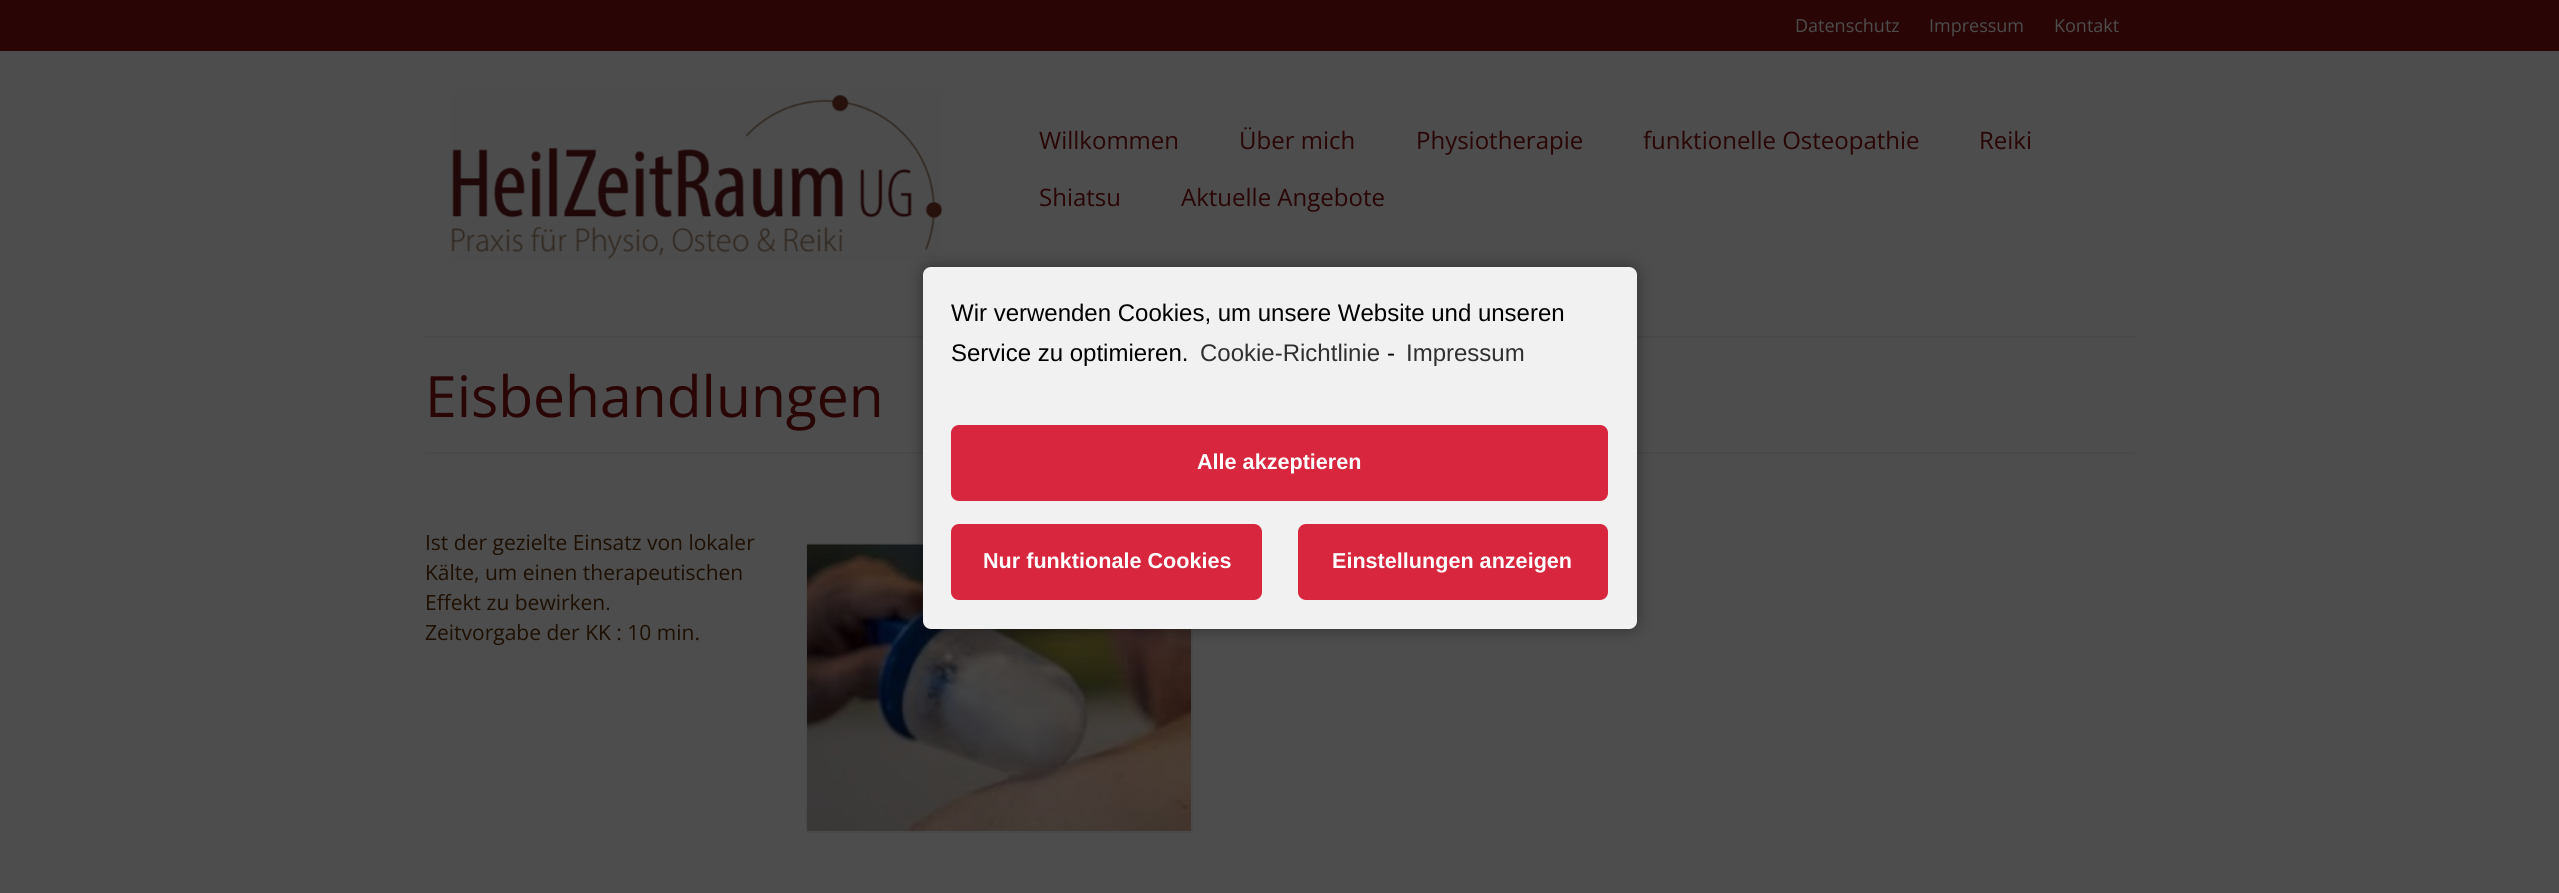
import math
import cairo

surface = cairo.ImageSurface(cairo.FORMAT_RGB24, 2559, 893)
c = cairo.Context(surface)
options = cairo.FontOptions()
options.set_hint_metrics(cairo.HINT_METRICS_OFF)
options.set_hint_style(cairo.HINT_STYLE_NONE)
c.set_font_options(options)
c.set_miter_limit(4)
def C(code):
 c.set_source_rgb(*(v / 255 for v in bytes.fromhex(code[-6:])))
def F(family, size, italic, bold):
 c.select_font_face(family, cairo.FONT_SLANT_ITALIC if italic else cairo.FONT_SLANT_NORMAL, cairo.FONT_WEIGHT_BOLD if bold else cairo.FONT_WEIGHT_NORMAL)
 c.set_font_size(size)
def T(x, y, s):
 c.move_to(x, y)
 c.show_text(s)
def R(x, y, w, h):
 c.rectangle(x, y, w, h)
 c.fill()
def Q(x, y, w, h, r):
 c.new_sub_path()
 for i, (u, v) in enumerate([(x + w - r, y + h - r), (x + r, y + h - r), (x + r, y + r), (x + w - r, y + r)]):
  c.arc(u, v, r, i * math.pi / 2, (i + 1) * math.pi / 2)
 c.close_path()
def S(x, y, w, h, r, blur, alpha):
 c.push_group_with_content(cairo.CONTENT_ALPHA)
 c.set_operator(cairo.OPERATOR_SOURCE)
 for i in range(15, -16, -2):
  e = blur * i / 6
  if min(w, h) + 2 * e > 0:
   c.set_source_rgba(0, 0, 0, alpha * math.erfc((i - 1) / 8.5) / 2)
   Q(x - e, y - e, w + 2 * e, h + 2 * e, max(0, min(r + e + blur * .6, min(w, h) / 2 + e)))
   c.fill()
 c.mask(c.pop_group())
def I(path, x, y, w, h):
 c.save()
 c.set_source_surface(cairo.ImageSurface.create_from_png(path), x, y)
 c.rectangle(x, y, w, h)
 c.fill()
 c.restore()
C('4d4d4d')
c.paint()
C('290505')
R(0,0,2559,51)
F('Open Sans',18,0,0)
C('4d4d4d')
T(1795,32,'Datenschutz')
T(1929,32,'Impressum')
T(2054,32,'Kontakt')
I('1.png',451,94,491,165)
F('Open Sans',24,0,0)
C('290505')
T(1039,149,'Willkommen')
T(1239,149,'Über mich')
T(1416,149,'Physiotherapie')
T(1643,149,'funktionelle Osteopathie')
T(1979,149,'Reiki')
T(1039,206,'Shiatsu')
T(1181,206,'Aktuelle Angebote')
C('494949')
R(425,336,1710,2)
R(425,452,1710,2)
F('Open Sans',57,0,0)
C('290505')
T(425,417,'Eisbehandlungen')
F('Open Sans',21,0,0)
C('1d0f02')
T(425,550,'Ist der gezielte Einsatz von lokaler')
T(425,580,'Kälte, um einen therapeutischen')
T(425,610,'Effekt zu bewirken.')
c.rectangle(807,544,385,288)
c.set_source_rgba(0,0,0,0.05)
c.stroke()
I('2.png',807,544,384,287)
C('1d0f02')
T(425,640,'Zeitvorgabe der KK : 10 min.')
C('000000')
S(923,267,714,362,8,7.5,.4)
C('f1f1f1')
Q(923,267,714,362,8)
c.fill()
F('Liberation Sans',24,0,0)
C('000000')
T(951,321,'Wir verwenden Cookies, um unsere Website und unseren')
T(951,361,'Service zu optimieren.')
C('303030')
T(1200,361,'Cookie-Richtlinie')
C('000000')
T(1387,361,'-')
C('303030')
T(1406,361,'Impressum')
C('d7263d')
Q(952.5,426.5,654,73,6.5)
c.fill_preserve()
c.set_line_width(3)
c.stroke()
F('Liberation Sans',21.6,0,1)
C('ffffff')
T(1197,469,'Alle akzeptieren')
C('d7263d')
Q(952.5,525.5,308,73,6.5)
c.fill_preserve()
c.stroke()
C('ffffff')
T(983,568,'Nur funktionale Cookies')
C('d7263d')
Q(1299.5,525.5,307,73,6.5)
c.fill_preserve()
c.stroke()
C('ffffff')
T(1332,568,'Einstellungen anzeigen')
surface.write_to_png('o.png')
